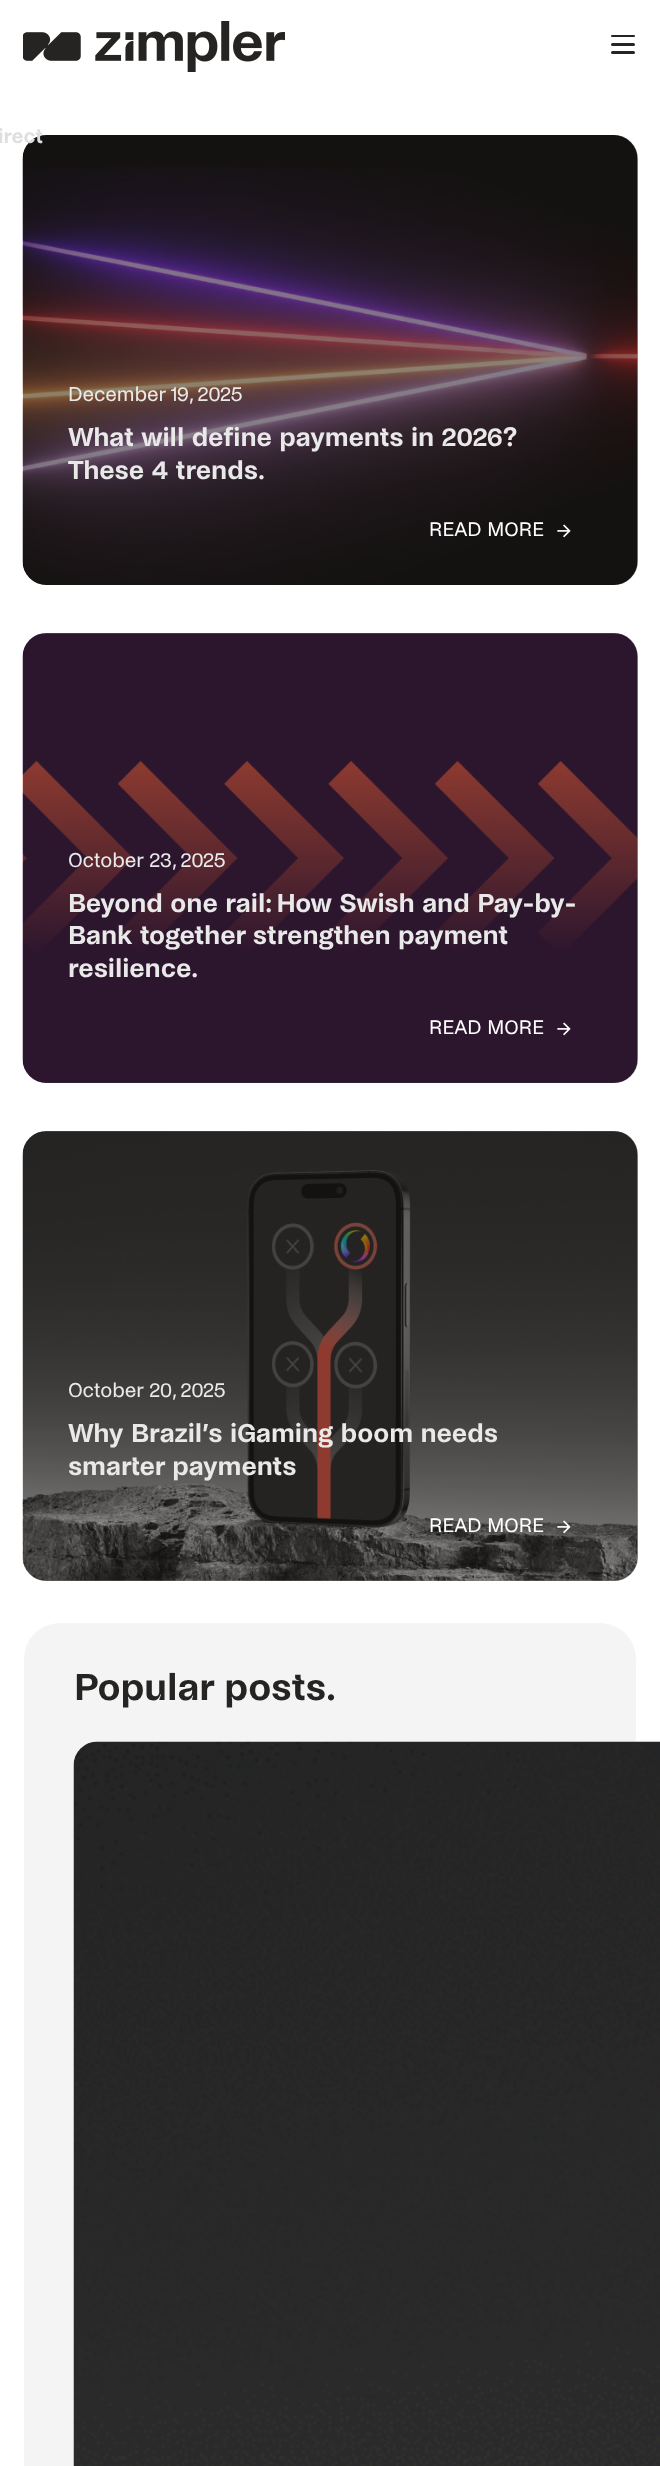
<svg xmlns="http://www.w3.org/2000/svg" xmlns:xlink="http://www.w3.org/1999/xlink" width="660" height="2466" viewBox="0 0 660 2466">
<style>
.cls-1{font:600 21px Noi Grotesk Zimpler;fill:#dedede}
.cls-2{font:21px Noi Grotesk Zimpler;fill:#e9e9e9}
.cls-3{font:600 27px Noi Grotesk Zimpler;fill:#e9e9e9}
.cls-4{font:20.5px Noi Grotesk Zimpler;fill:#ffffff}
.cls-5{font:600 39px Noi Grotesk Zimpler;fill:#252422}
</style>
<rect width="100%" height="100%" fill="#ffffff"/>
<image xlink:href="image0.png" x="23" y="21" width="262" height="51"/>
<rect fill="#252422" x="611" y="35" width="24" height="2" rx="1"/>
<rect fill="#252422" x="611" y="43" width="24" height="3" rx="1.5"/>
<rect fill="#252422" x="611" y="51" width="24" height="3" rx="1.5"/>
<image xlink:href="image1.png" x="22" y="135" width="616" height="450"/>
<rect fill="#252422" fill-opacity="0.5" x="23" y="135" width="615" height="450" rx="24"/>
<image xlink:href="image2.png" x="557" y="524" width="14" height="14"/>
<image xlink:href="image3.png" x="22" y="633" width="616" height="450"/>
<rect fill="#252422" fill-opacity="0.5" x="23" y="633" width="615" height="450" rx="24"/>
<image xlink:href="image4.png" x="557" y="1022" width="14" height="14"/>
<image xlink:href="image5.png" x="22" y="1131" width="616" height="450"/>
<rect fill="#252422" fill-opacity="0.5" x="23" y="1131" width="615" height="450" rx="24"/>
<image xlink:href="image6.png" x="557" y="1520" width="14" height="14"/>
<rect fill="#f4f4f4" x="24" y="1623" width="612" height="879" rx="36"/>
<image xlink:href="image7.png" x="73" y="1741" width="587" height="725"/>
<text class="cls-1" x="-2" y="143">irect</text>
<text class="cls-2" x="68" y="401">December 19, 2025</text>
<text class="cls-3"><tspan x="68" y="446">What will define payments in 2026?</tspan><tspan x="68" y="479">These 4 trends.</tspan></text>
<text class="cls-4" x="429" y="536">READ MORE</text>
<text class="cls-2" x="68" y="867">October 23, 2025</text>
<text class="cls-3"><tspan x="68" y="912">Beyond one rail: How Swish and Pay-by-</tspan><tspan x="68" y="944">Bank together strengthen payment</tspan><tspan x="68" y="977">resilience.</tspan></text>
<text class="cls-4" x="429" y="1034">READ MORE</text>
<text class="cls-2" x="68" y="1397">October 20, 2025</text>
<text class="cls-3"><tspan x="68" y="1442">Why Brazil’s iGaming boom needs</tspan><tspan x="68" y="1475">smarter payments</tspan></text>
<text class="cls-4" x="429" y="1532">READ MORE</text>
<text class="cls-5" x="74" y="1700">Popular posts.</text>
</svg>
